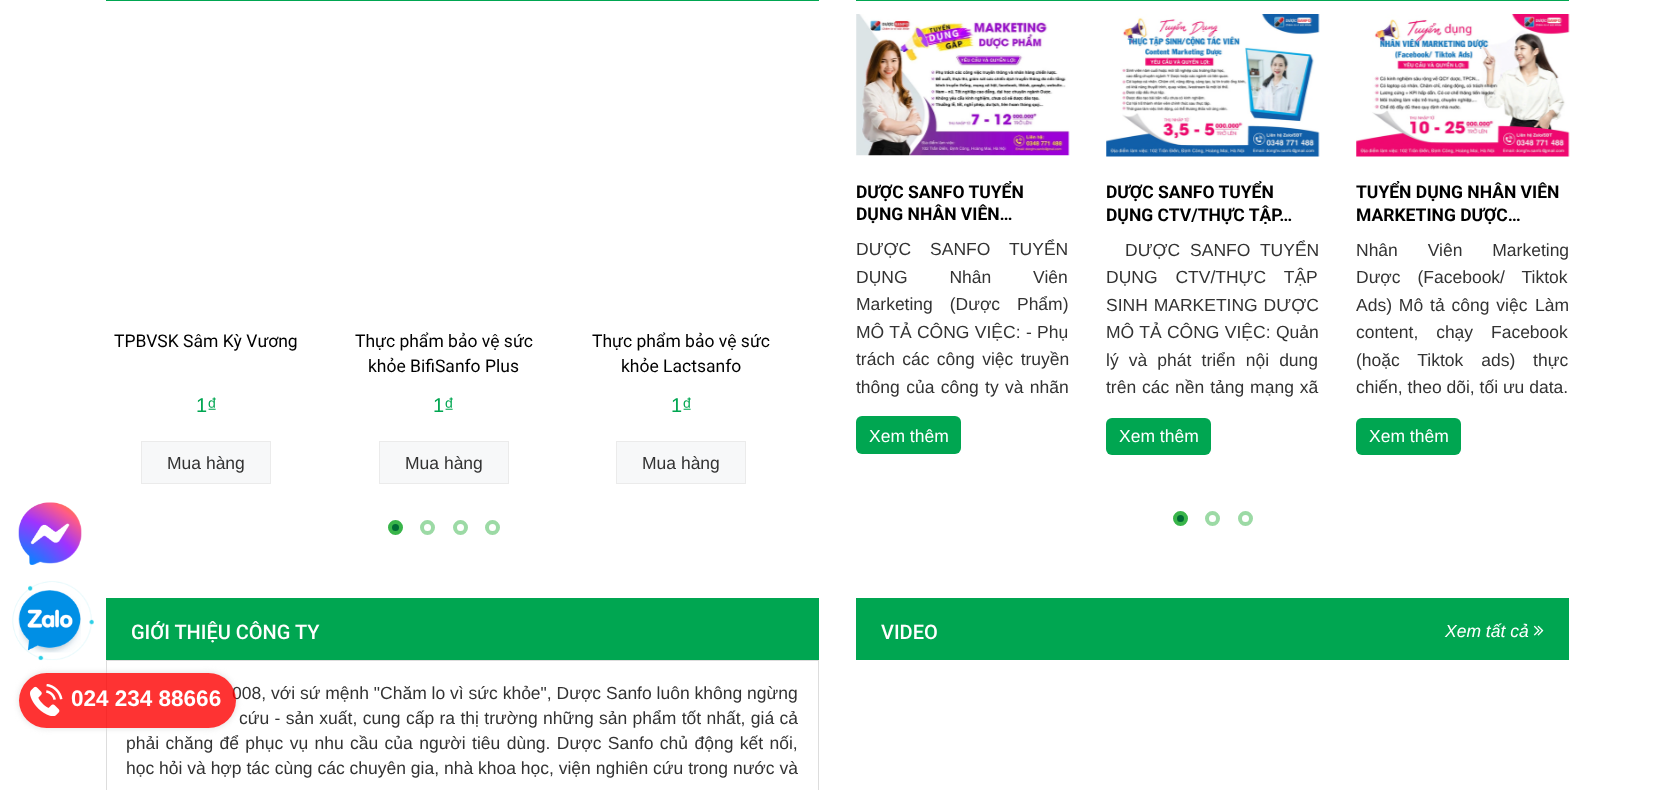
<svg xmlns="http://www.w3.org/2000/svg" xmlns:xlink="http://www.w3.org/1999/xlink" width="1674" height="790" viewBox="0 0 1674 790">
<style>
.cls-1{font:17.5px Roboto;fill:#000000}
.cls-2{font:20px Liberation Sans;fill:#00a651}
.cls-3{font:17.5px Liberation Sans;fill:#333333}
.cls-4{font:bold 17.5px Roboto;fill:#000000}
.cls-5{font:17.5px Liberation Sans;fill:#ffffff}
.cls-6{font:500 20px Roboto;fill:#ffffff}
.cls-7{font:italic 17.5px Liberation Sans;fill:#ffffff}
.cls-8{font:bold 22.5px Liberation Sans;fill:#ffffff}
</style>
<defs>
<clipPath id="clip1"><path d="M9 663H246V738H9ZM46.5 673H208.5C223.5 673 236 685.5 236 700.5C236 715.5 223.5 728 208.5 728H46.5C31.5 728 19 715.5 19 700.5C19 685.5 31.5 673 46.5 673Z" clip-rule="evenodd"/></clipPath>
</defs>
<rect width="100%" height="100%" fill="#ffffff"/>
<image xlink:href="image0.png" x="18" y="502" width="64" height="63"/>
<rect fill="#00a651" x="106" y="0" width="713" height="1"/>
<rect fill="#f7f8f9" stroke="#ebebeb" x="141.5" y="441.5" width="129" height="42"/>
<rect fill="#f7f8f9" stroke="#ebebeb" x="379.5" y="441.5" width="129" height="42"/>
<rect fill="#f7f8f9" stroke="#ebebeb" x="616.5" y="441.5" width="129" height="42"/>
<circle fill="#006b34" stroke="#39b54a" stroke-width="4" cx="395.5" cy="527.5" r="5.5"/>
<circle fill="none" stroke="#9cdaa5" stroke-width="4" cx="427.5" cy="527.5" r="5.5"/>
<circle fill="none" stroke="#9cdaa5" stroke-width="4" cx="460.5" cy="527.5" r="5.5"/>
<circle fill="none" stroke="#9cdaa5" stroke-width="4" cx="492.5" cy="527.5" r="5.5"/>
<rect fill="#00a651" x="856" y="0" width="713" height="1"/>
<image xlink:href="image1.png" x="856" y="14" width="214" height="142"/>
<rect fill="#00a651" x="856" y="416" width="105" height="38" rx="6"/>
<image xlink:href="image2.png" x="1106" y="14" width="214" height="143"/>
<rect fill="#00a651" x="1106" y="418" width="105" height="37" rx="6"/>
<image xlink:href="image3.png" x="1356" y="14" width="214" height="143"/>
<rect fill="#00a651" x="1356" y="418" width="105" height="37" rx="6"/>
<circle fill="#006b34" stroke="#39b54a" stroke-width="4" cx="1180.5" cy="518.5" r="5.5"/>
<circle fill="none" stroke="#9cdaa5" stroke-width="4" cx="1212.5" cy="518.5" r="5.5"/>
<circle fill="none" stroke="#9cdaa5" stroke-width="4" cx="1245.5" cy="518.5" r="5.5"/>
<rect fill="#00a651" x="106" y="598" width="713" height="62"/>
<rect fill="none" stroke="#dddddd" x="106.5" y="660.5" width="712" height="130"/>
<rect fill="#00a651" x="856" y="598" width="713" height="62"/>
<image xlink:href="image4.png" x="1533" y="625" width="11" height="11"/>
<image xlink:href="image5.png" x="12" y="581" width="82" height="80"/>
<image xlink:href="image6.png" x="18" y="590" width="63" height="63"/>
<g clip-path="url(#clip1)">
<rect fill="#dddddd" filter="blur(3px)" x="19" y="673" width="217" height="55" rx="27.5"/>
</g>
<text class="cls-1" x="114" y="347">TPBVSK Sâm Kỳ Vương</text>
<text class="cls-2" x="196" y="412">1₫</text>
<text class="cls-3" x="167" y="469">Mua hàng</text>
<text class="cls-1" x="355" y="347">Thực phẩm bảo vệ sức</text>
<text class="cls-1" x="368" y="372">khỏe BifiSanfo Plus</text>
<text class="cls-2" x="433" y="412">1₫</text>
<text class="cls-3" x="405" y="469">Mua hàng</text>
<text class="cls-1" x="592" y="347">Thực phẩm bảo vệ sức</text>
<text class="cls-1" x="621" y="372">khỏe Lactsanfo</text>
<text class="cls-2" x="671" y="412">1₫</text>
<text class="cls-3" x="642" y="469">Mua hàng</text>
<text class="cls-4"><tspan x="856" y="198">DƯỢC SANFO TUYỂN</tspan><tspan x="856" y="220">DỤNG NHÂN VIÊN…</tspan></text>
<text class="cls-3"><tspan x="856" y="255" word-spacing="14">DƯỢC SANFO TUYỂN</tspan><tspan x="856" y="283" word-spacing="37">DỤNG Nhân Viên</tspan><tspan x="856" y="310" word-spacing="12">Marketing (Dược Phẩm)</tspan><tspan x="856" y="338" word-spacing="0.5">MÔ TẢ CÔNG VIỆC: - Phụ</tspan><tspan x="856" y="365" word-spacing="2.5">trách các công việc truyền</tspan><tspan x="856" y="393" word-spacing="1.5">thông của công ty và nhãn</tspan></text>
<text class="cls-5" x="869" y="442">Xem thêm</text>
<text class="cls-4"><tspan x="1106" y="198">DƯỢC SANFO TUYỂN</tspan><tspan x="1106" y="221">DỤNG CTV/THỰC TẬP…</tspan></text>
<text class="cls-3" x="1125" y="256" word-spacing="5">DƯỢC SANFO TUYỂN</text>
<text class="cls-3"><tspan x="1106" y="283" word-spacing="13">DỤNG CTV/THỰC TẬP</tspan><tspan x="1106" y="311" word-spacing="1">SINH MARKETING DƯỢC</tspan><tspan x="1106" y="338" word-spacing="0.5">MÔ TẢ CÔNG VIỆC:</tspan></text>
<text class="cls-3" x="1276" y="338">Quản</text>
<text class="cls-3"><tspan x="1106" y="366" word-spacing="5.25">lý và phát triển nội dung</tspan><tspan x="1106" y="393" word-spacing="1">trên các nền tảng mạng xã</tspan></text>
<text class="cls-5" x="1119" y="442">Xem thêm</text>
<text class="cls-4"><tspan x="1356" y="198">TUYỂN DỤNG NHÂN VIÊN</tspan><tspan x="1356" y="221">MARKETING DƯỢC…</tspan></text>
<text class="cls-3"><tspan x="1356" y="256" word-spacing="25">Nhân Viên Marketing</tspan><tspan x="1356" y="283" word-spacing="12">Dược (Facebook/ Tiktok</tspan><tspan x="1356" y="311" word-spacing="2">Ads) Mô tả công việc</tspan></text>
<text class="cls-3" x="1535" y="311">Làm</text>
<text class="cls-3"><tspan x="1356" y="338" word-spacing="13">content, chạy Facebook</tspan><tspan x="1356" y="366" word-spacing="13">(hoặc Tiktok ads) thực</tspan><tspan x="1356" y="393">chiến, theo dõi, tối ưu data.</tspan></text>
<text class="cls-5" x="1369" y="442">Xem thêm</text>
<text class="cls-6" x="131" y="639">GIỚI THIỆU CÔNG TY</text>
<text class="cls-3" x="232" y="699">008, với sứ mệnh "Chăm lo vì sức khỏe", Dược Sanfo luôn không ngừng</text>
<text class="cls-3" x="239" y="724" word-spacing="0.5">cứu - sản xuất, cung cấp ra thị trường những sản phẩm tốt nhất, giá cả</text>
<text class="cls-3"><tspan x="126" y="749" word-spacing="1.5">phải chăng để phục vụ nhu cầu của người tiêu dùng. Dược Sanfo chủ động kết nối,</tspan><tspan x="126" y="774">học hỏi và hợp tác cùng các chuyên gia, nhà khoa học, viện nghiên cứu trong nước và</tspan></text>
<text class="cls-6" x="881" y="639">VIDEO</text>
<text class="cls-7" x="1445" y="637">Xem tất cả</text>
<rect fill="#fe0000" fill-opacity="0.8" x="19" y="673" width="217" height="55" rx="27.5"/>
<image xlink:href="image7.png" x="30" y="684" width="33" height="32"/>
<text class="cls-8" x="71" y="706">024 234 88666</text>
</svg>
